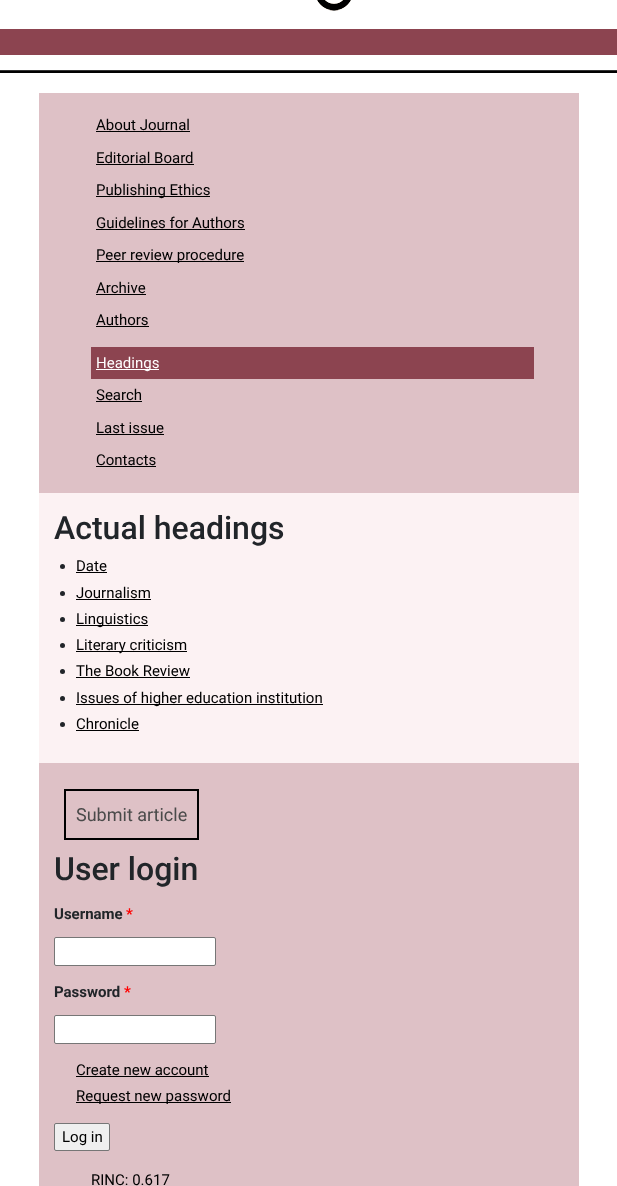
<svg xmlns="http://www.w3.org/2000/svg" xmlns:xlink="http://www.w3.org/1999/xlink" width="617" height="1186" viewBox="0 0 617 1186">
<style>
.cls-1{font:15px Roboto;fill:#000000}
.cls-2{font:15px Roboto;fill:#ffffff}
.cls-3{font:500 32px Roboto;fill:#212529}
.cls-4{font:18px Roboto;fill:#4a4a4a}
.cls-5{font:bold 15px Roboto;fill:#212529}
.cls-6{font:bold 15px Roboto;fill:#ff0000}
</style>
<rect width="100%" height="100%" fill="#ffffff"/>
<image xlink:href="image0.png" x="317" y="0" width="34" height="11"/>
<rect fill="#8c4450" x="0" y="29" width="617" height="26"/>
<rect fill="#333333" x="0" y="70" width="617" height="1"/>
<rect fill="#000000" x="0" y="71" width="617" height="2"/>
<rect fill="#dec1c6" x="39" y="93" width="540" height="400"/>
<rect fill="#000000" x="96" y="131" width="94" height="1"/>
<rect fill="#000000" x="96" y="164" width="98" height="1"/>
<rect fill="#000000" x="96" y="196" width="114" height="1"/>
<rect fill="#000000" x="96" y="229" width="149" height="1"/>
<rect fill="#000000" x="96" y="261" width="148" height="1"/>
<rect fill="#000000" x="96" y="294" width="50" height="1"/>
<rect fill="#000000" x="96" y="326" width="53" height="1"/>
<rect fill="#8c4450" x="91" y="347" width="443" height="32"/>
<rect fill="#ffffff" x="96" y="369" width="63" height="1"/>
<rect fill="#000000" x="96" y="401" width="46" height="1"/>
<rect fill="#000000" x="96" y="434" width="68" height="1"/>
<rect fill="#000000" x="96" y="466" width="60" height="1"/>
<rect fill="#fcf2f3" x="39" y="493" width="540" height="270"/>
<circle fill="#212529" cx="62.5" cy="566.5" r="2.5"/>
<rect fill="#000000" x="76" y="572" width="31" height="1"/>
<circle fill="#212529" cx="62.5" cy="593.5" r="2.5"/>
<rect fill="#000000" x="76" y="599" width="75" height="1"/>
<circle fill="#212529" cx="62.5" cy="619.5" r="2.5"/>
<rect fill="#000000" x="76" y="625" width="72" height="1"/>
<circle fill="#212529" cx="62.5" cy="645.5" r="2.5"/>
<rect fill="#000000" x="76" y="651" width="111" height="1"/>
<circle fill="#212529" cx="62.5" cy="671.5" r="2.5"/>
<rect fill="#000000" x="76" y="677" width="114" height="1"/>
<circle fill="#212529" cx="62.5" cy="698.5" r="2.5"/>
<rect fill="#000000" x="76" y="704" width="247" height="1"/>
<circle fill="#212529" cx="62.5" cy="724.5" r="2.5"/>
<rect fill="#000000" x="76" y="730" width="63" height="1"/>
<rect fill="#dec1c6" x="39" y="763" width="540" height="423"/>
<rect fill="none" stroke="#000000" stroke-width="2" x="65" y="790" width="133" height="49"/>
<rect fill="#ffffff" stroke="#767676" x="54.5" y="937.5" width="161" height="28" rx="1.5"/>
<rect fill="#ffffff" stroke="#767676" x="54.5" y="1015.5" width="161" height="28" rx="1.5"/>
<rect fill="#000000" x="76" y="1076" width="133" height="1"/>
<rect fill="#000000" x="76" y="1102" width="155" height="1"/>
<rect fill="#efefef" stroke="#767676" x="54.5" y="1123.5" width="55" height="27" rx="1.5"/>
<text class="cls-1" x="96" y="130">About Journal</text>
<text class="cls-1" x="96" y="163">Editorial Board</text>
<text class="cls-1" x="96" y="195">Publishing Ethics</text>
<text class="cls-1" x="96" y="228">Guidelines for Authors</text>
<text class="cls-1" x="96" y="260">Peer review procedure</text>
<text class="cls-1" x="96" y="293">Archive</text>
<text class="cls-1" x="96" y="325">Authors</text>
<text class="cls-2" x="96" y="368">Headings</text>
<text class="cls-1" x="96" y="400">Search</text>
<text class="cls-1" x="96" y="433">Last issue</text>
<text class="cls-1" x="96" y="465">Contacts</text>
<text class="cls-3" x="54" y="539">Actual headings</text>
<text class="cls-1"><tspan x="76" y="571">Date</tspan><tspan x="76" y="598">Journalism</tspan><tspan x="76" y="624">Linguistics</tspan><tspan x="76" y="650">Literary criticism</tspan><tspan x="76" y="676">The Book Review</tspan><tspan x="76" y="703">Issues of higher education institution</tspan><tspan x="76" y="729">Chronicle</tspan></text>
<text class="cls-4" x="76" y="821">Submit article</text>
<text class="cls-3" x="54" y="880">User login</text>
<text class="cls-5" x="54" y="919">Username</text>
<text class="cls-6" x="126" y="919">*</text>
<text class="cls-5" x="54" y="997">Password</text>
<text class="cls-6" x="124" y="997">*</text>
<text class="cls-1"><tspan x="76" y="1075">Create new account</tspan><tspan x="76" y="1101">Request new password</tspan></text>
<text class="cls-1" x="62" y="1142">Log in</text>
<text class="cls-1" x="91" y="1185">RINC: 0.617</text>
</svg>
